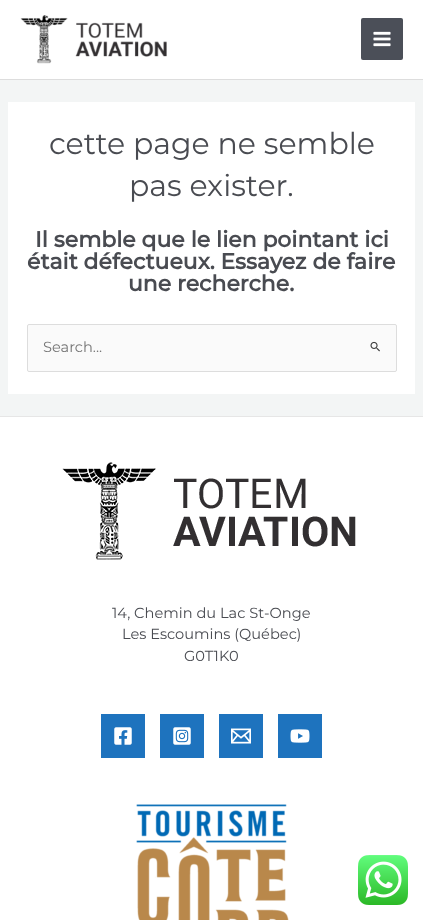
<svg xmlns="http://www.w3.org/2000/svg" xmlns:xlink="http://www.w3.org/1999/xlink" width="423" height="920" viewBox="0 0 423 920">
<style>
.cls-1{font:30px Montserrat;fill:#494b51}
.cls-2{font:bold 21.9px Montserrat;fill:#494b51}
.cls-3{font:14.6px Montserrat;fill:#757575}
.cls-4{font:14.6px Montserrat;fill:#494b51}
</style>
<rect width="100%" height="100%" fill="#f3f5f5"/>
<rect fill="#ffffff" x="0" y="0" width="423" height="79"/>
<rect fill="#dddddd" x="0" y="79" width="423" height="1"/>
<image xlink:href="image0.png" x="20" y="15" width="147" height="49"/>
<rect fill="#4b4f58" x="361" y="18" width="42" height="42" rx="2"/>
<image xlink:href="image1.png" x="373" y="31" width="18" height="16"/>
<rect fill="#ffffff" x="8" y="102" width="407" height="292"/>
<rect fill="#fafafa" stroke="#dddddd" x="27.5" y="324.5" width="369" height="47" rx="1.5"/>
<image xlink:href="image2.png" x="370" y="341" width="10" height="11"/>
<rect fill="#ffffff" x="0" y="417" width="423" height="503"/>
<rect fill="#e6e6e6" x="0" y="416" width="423" height="1"/>
<image xlink:href="image3.png" x="62" y="462" width="294" height="98"/>
<rect fill="#1e73be" x="101" y="714" width="44" height="44"/>
<image xlink:href="image4.png" x="114" y="727" width="18" height="18"/>
<rect fill="#1e73be" x="160" y="714" width="44" height="44"/>
<image xlink:href="image5.png" x="173" y="727" width="18" height="18"/>
<rect fill="#1e73be" x="219" y="714" width="44" height="44"/>
<image xlink:href="image6.png" x="231" y="728" width="20" height="16"/>
<rect fill="#1e73be" x="278" y="714" width="44" height="44"/>
<image xlink:href="image7.png" x="290" y="729" width="20" height="14"/>
<image xlink:href="image8.png" x="136" y="804" width="153" height="116"/>
<image xlink:href="image9.png" x="358" y="855" width="50" height="50"/>
<text class="cls-1" x="49" y="154">cette page ne semble</text>
<text class="cls-1" x="129" y="196">pas exister.</text>
<text class="cls-2" x="35" y="247">Il semble que le lien pointant ici</text>
<text class="cls-2" x="27" y="269">était défectueux. Essayez de faire</text>
<text class="cls-2" x="128" y="291">une recherche.</text>
<text class="cls-3" x="43" y="352">Search...</text>
<text class="cls-4" x="112" y="618">14, Chemin du Lac St-Onge</text>
<text class="cls-4" x="122" y="639">Les Escoumins (Québec)</text>
<text class="cls-4" x="184" y="661">G0T1K0</text>
</svg>
